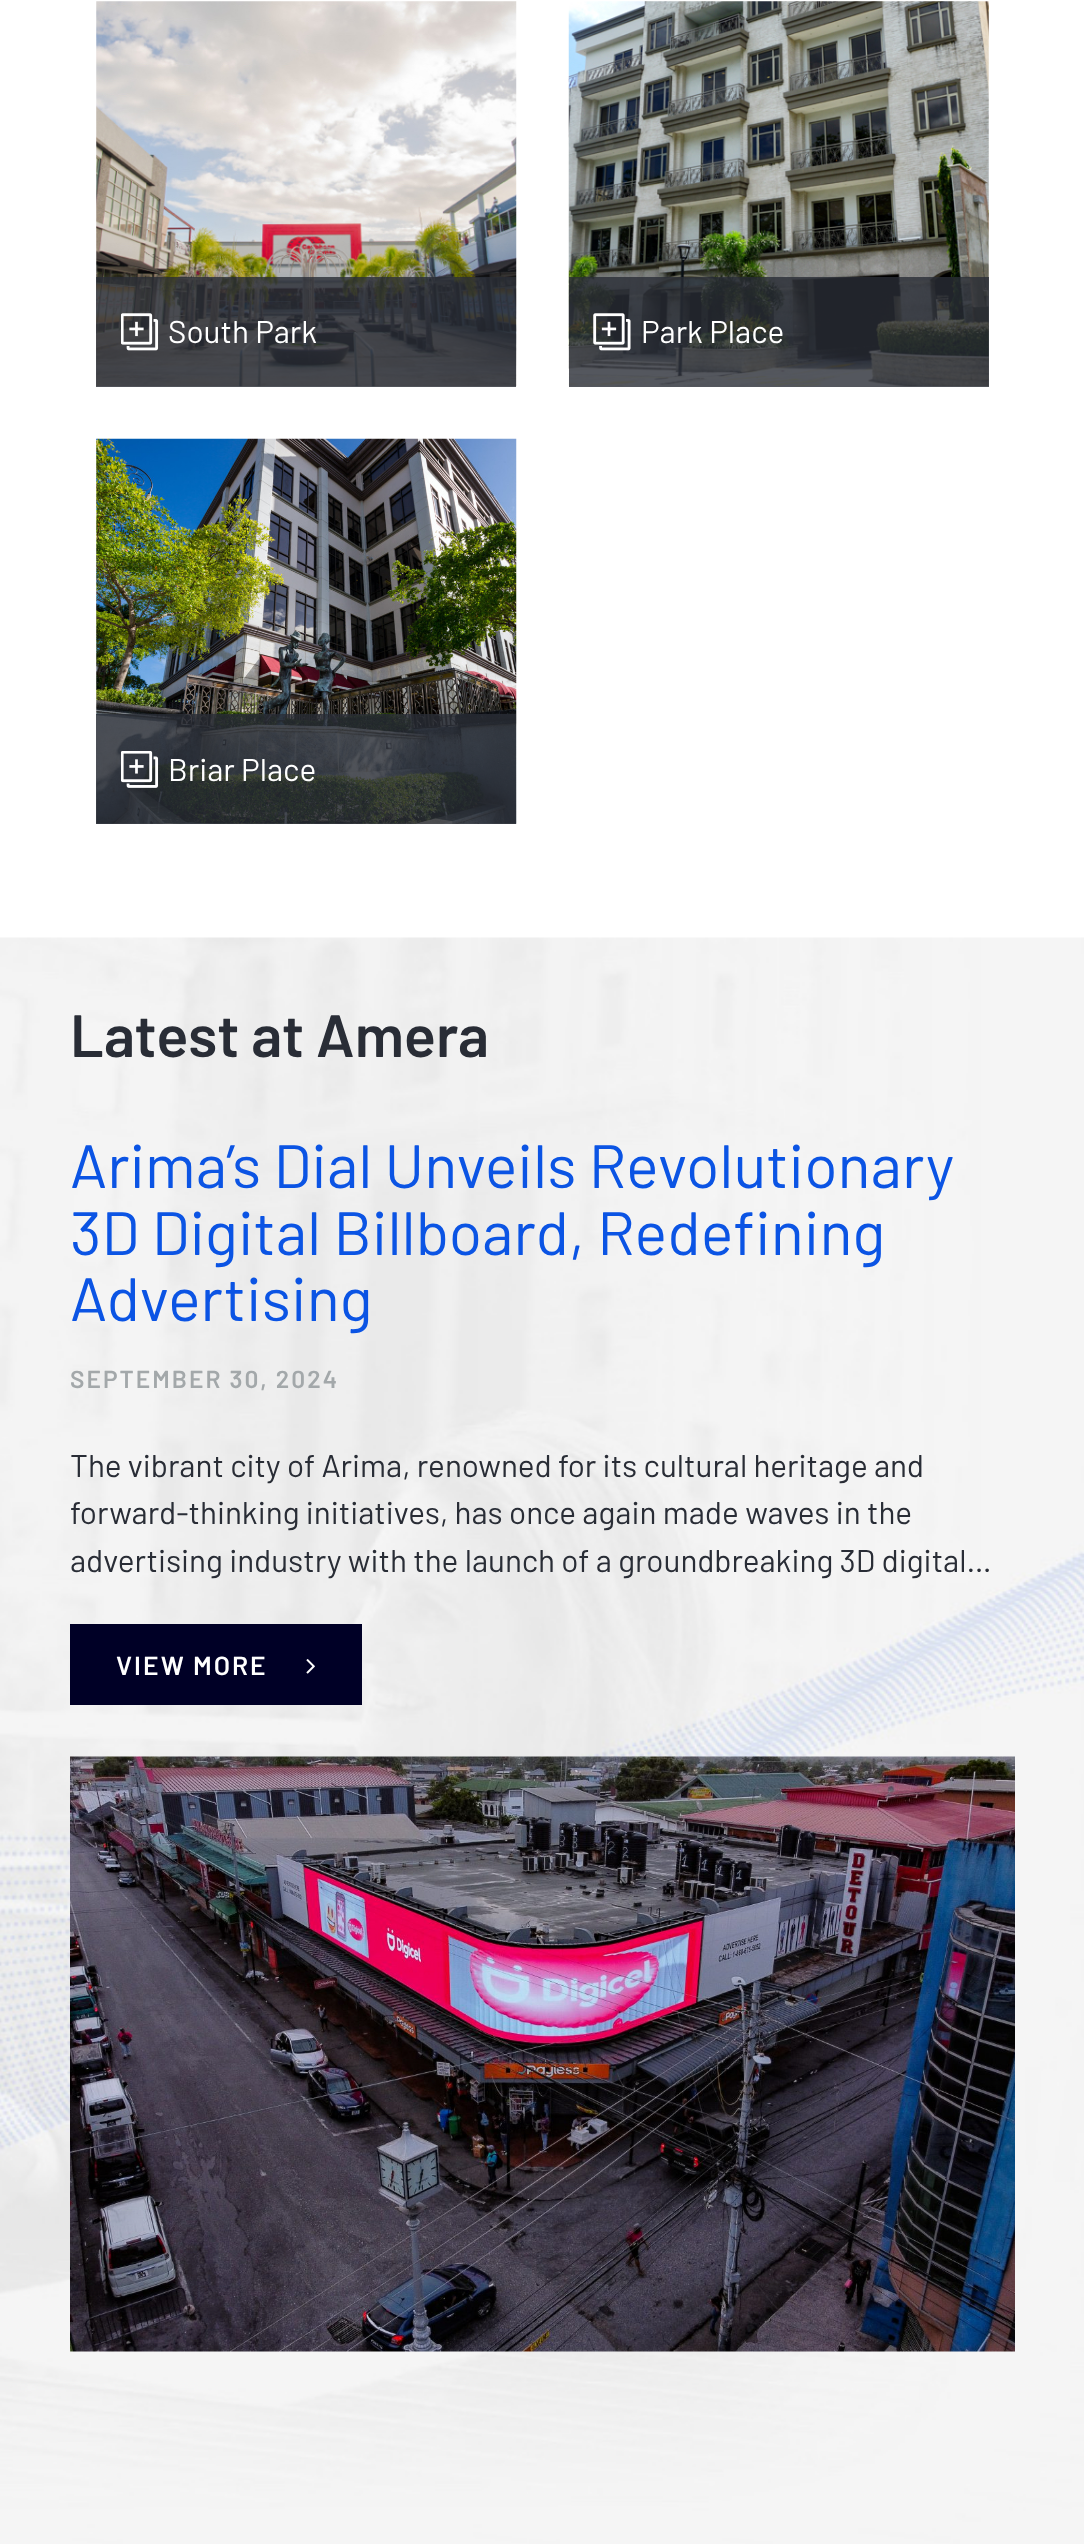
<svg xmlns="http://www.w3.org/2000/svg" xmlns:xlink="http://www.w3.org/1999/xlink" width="1084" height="2545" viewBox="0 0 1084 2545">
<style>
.cls-1{font:31.5px Barlow;fill:#ffffff}
.cls-2{font:600 59.5px Barlow;fill:#292d36}
.cls-3{font:61.25px Barlow;fill:#0b54e4}
.cls-4{font:600 24.5px Barlow;letter-spacing:2px;fill:#a3a8aa}
.cls-5{font:31.5px Barlow;fill:#292d36}
.cls-6{font:600 26.25px Barlow;letter-spacing:2px;fill:#ffffff}
</style>
<rect width="100%" height="100%" fill="#ffffff"/>
<image xlink:href="image0.png" x="96" y="1" width="421" height="386"/>
<rect fill="#292d36" fill-opacity="0.8" x="96" y="277" width="420" height="110"/>
<image xlink:href="image1.png" x="121" y="313" width="38" height="38"/>
<image xlink:href="image2.png" x="568" y="1" width="421" height="386"/>
<rect fill="#292d36" fill-opacity="0.8" x="569" y="277" width="420" height="110"/>
<image xlink:href="image3.png" x="593" y="313" width="38" height="38"/>
<image xlink:href="image4.png" x="96" y="438" width="421" height="386"/>
<rect fill="#292d36" fill-opacity="0.8" x="96" y="714" width="420" height="110"/>
<image xlink:href="image5.png" x="121" y="751" width="38" height="37"/>
<image xlink:href="image6.png" x="0" y="937" width="1084" height="1607"/>
<rect fill="#000026" x="70" y="1624" width="292" height="81"/>
<image xlink:href="image7.png" x="306" y="1659" width="9" height="15"/>
<image xlink:href="image8.png" x="70" y="1756" width="945" height="596"/>
<text class="cls-1" x="168" y="343">South Park</text>
<text class="cls-1" x="641" y="343">Park Place</text>
<text class="cls-1" x="168" y="781">Briar Place</text>
<text class="cls-2" x="70" y="1057">Latest at Amera</text>
<text class="cls-3"><tspan x="70" y="1188">Arima’s Dial Unveils Revolutionary</tspan><tspan x="70" y="1255">3D Digital Billboard, Redefining</tspan><tspan x="70" y="1321">Advertising</tspan></text>
<text class="cls-4" x="70" y="1388">SEPTEMBER 30, 2024</text>
<text class="cls-5"><tspan x="70" y="1477">The vibrant city of Arima, renowned for its cultural heritage and</tspan><tspan x="70" y="1524">forward-thinking initiatives, has once again made waves in the</tspan><tspan x="70" y="1572">advertising industry with the launch of a groundbreaking 3D digital…</tspan></text>
<text class="cls-6" x="116" y="1675">VIEW MORE</text>
</svg>
